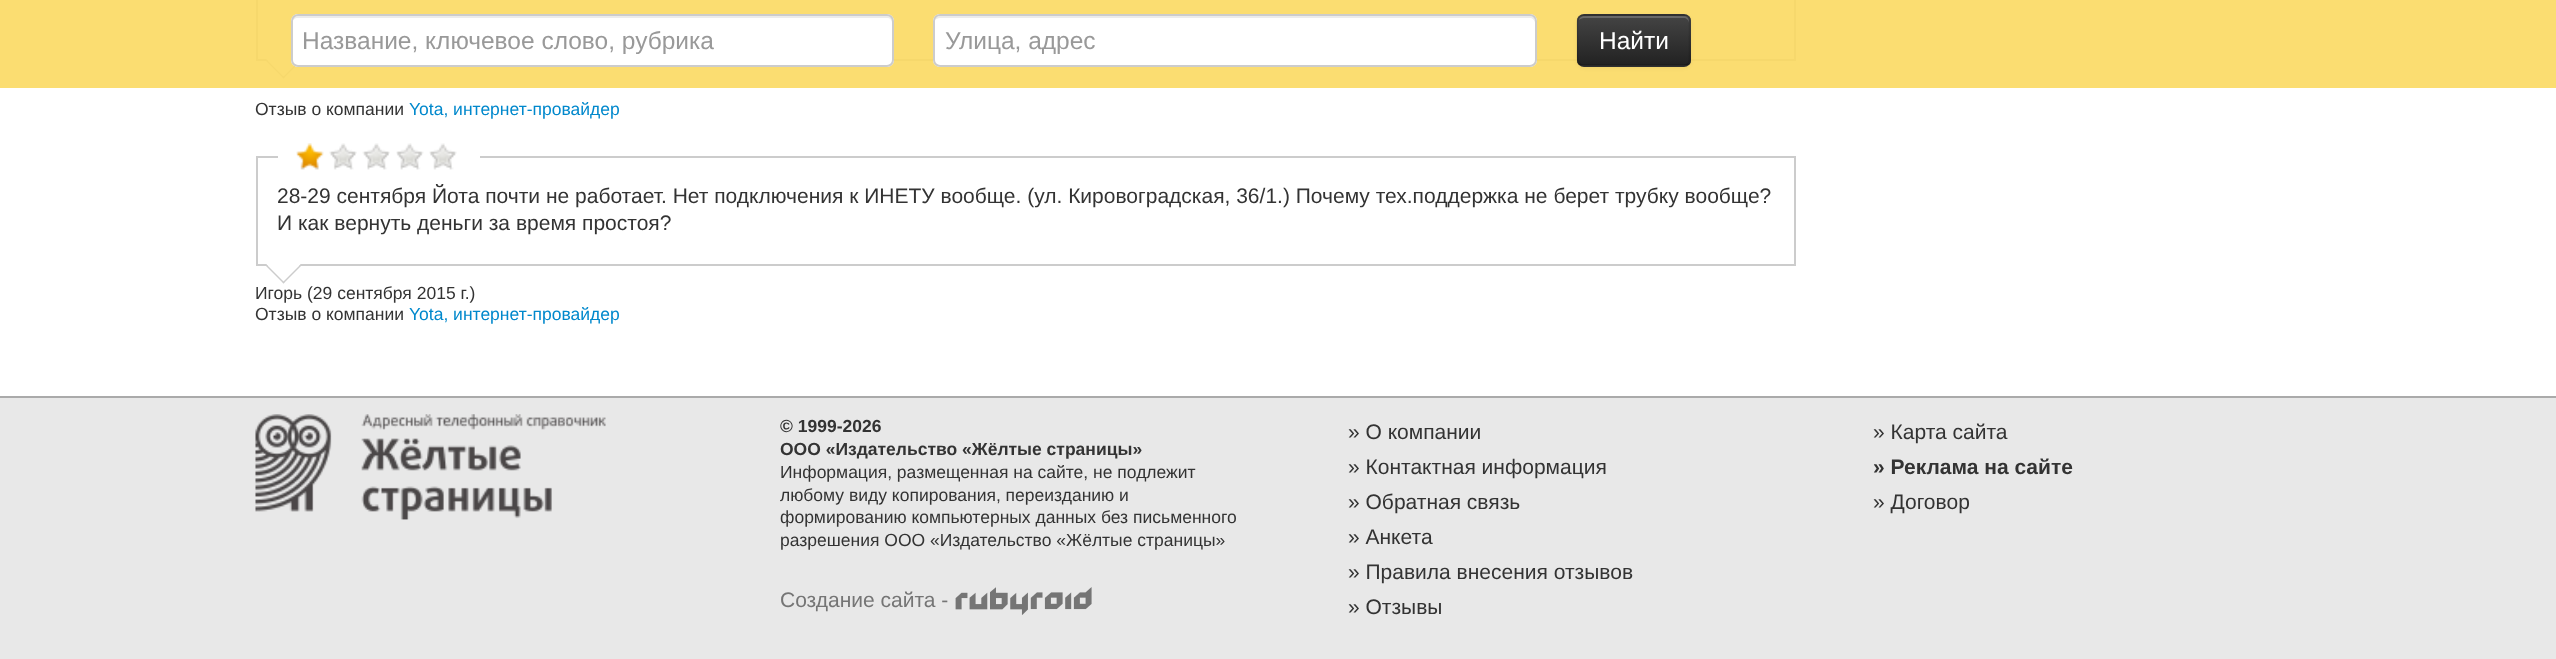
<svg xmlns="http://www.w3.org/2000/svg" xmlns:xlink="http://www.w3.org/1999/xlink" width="2556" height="659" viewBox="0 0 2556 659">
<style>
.cls-1{font:24.5px Liberation Sans;fill:#999999}
.cls-2{font:24.5px Liberation Sans;fill:#ffffff}
.cls-3{font:17.5px Liberation Sans;fill:#333333}
.cls-4{font:17.5px Liberation Sans;fill:#0088cc}
.cls-5{font:21px Liberation Sans;fill:#333333}
.cls-6{font:bold 17.5px Liberation Sans;fill:#333333}
.cls-7{font:21px Liberation Sans;fill:#757575}
.cls-8{font:bold 21px Liberation Sans;fill:#333333}
</style>
<defs>
<clipPath id="clip1"><rect x="1577" y="14" width="114" height="53" rx="7"/></clipPath>
<linearGradient id="g1" gradientUnits="userSpaceOnUse" x1="1634" y1="16" x2="1634" y2="65"><stop offset="0" stop-color="#444444"/><stop offset="1" stop-color="#222222"/></linearGradient>
</defs>
<rect width="100%" height="100%" fill="#ffffff"/>
<rect fill="none" stroke="#cccccc" stroke-width="2" x="257" y="-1" width="1538" height="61"/>
<path fill="#ffffff" d="M283.5 41.5L301 59L283.5 76L266 59Z"/>
<path fill="#cccccc" d="M301 59L302 60L283.5 78.5L282.5 77.5Z"/>
<path fill="#cccccc" d="M266 59L284.5 77.5L283.5 78.5L265 60Z"/>
<rect fill="#fbd962" fill-opacity="0.9" x="0" y="0" width="2556" height="88"/>
<rect fill="#ffffff" x="291" y="14" width="603" height="53" rx="7"/>
<path fill="#ececec" d="M298 18H887C890 18 892 20 892 23V61L891 64L893 61V21L892 18C891 17 890 16 889 16H297C293 16 292 20 292 23C292 20 295 18 298 18Z"/>
<rect fill="none" stroke="#cccccc" stroke-width="2" x="292" y="15" width="601" height="51" rx="6"/>
<rect fill="#ffffff" x="933" y="14" width="604" height="53" rx="7"/>
<path fill="#ececec" d="M940 18H1530C1532 18 1535 20 1535 23V21C1535 18 1533 16 1530 16H940C938 16 935 18 935 20C936 19 938 18 940 18Z"/>
<rect fill="none" stroke="#cccccc" stroke-width="2" x="934" y="15" width="602" height="51" rx="6"/>
<rect fill="#000000" fill-opacity="0.05" filter="blur(2px)" x="1577" y="16" width="114" height="52" rx="7"/>
<rect fill="#363636" x="1577" y="14" width="114" height="53" rx="7"/>
<g clip-path="url(#clip1)">
<rect fill="url(#g1)" x="1577" y="16" width="114" height="49"/>
</g>
<path fill="#ffffff" fill-opacity="0.2" d="M1584 18H1684C1686 18 1689 20 1689 23V21C1689 18 1687 16 1684 16H1584C1582 16 1579 18 1579 20C1580 19 1582 18 1584 18Z"/>
<path fill="none" stroke="#000000" stroke-opacity="0.25" stroke-width="1.8" d="M1688 64C1686.5 65 1685 65.5 1683.5 65.5H1584C1582 65.5 1580.5 65 1579.5 64"/>
<path fill="none" stroke="#000000" stroke-opacity="0.1" stroke-width="1.8" d="M1579.5 64C1576.5 61 1577.5 56.5 1577.5 53V40C1577.5 13 1573 15 1600.5 15H1667C1694 15 1689.5 13 1689.5 40V53C1689.5 56.5 1690.5 61 1688 64"/>
<rect fill="none" stroke="#cccccc" stroke-width="2" x="257" y="157" width="1538" height="108"/>
<rect fill="#ffffff" x="278" y="156" width="202" height="2"/>
<image xlink:href="image0.png" x="296" y="143" width="28" height="27"/>
<image xlink:href="image1.png" x="329" y="143" width="28" height="27"/>
<image xlink:href="image2.png" x="362" y="143" width="28" height="27"/>
<image xlink:href="image3.png" x="396" y="143" width="28" height="27"/>
<image xlink:href="image4.png" x="429" y="143" width="28" height="27"/>
<path fill="#ffffff" d="M283.5 246.5L301 264L283.5 281L266 264Z"/>
<path fill="#cccccc" d="M301 264L302 265L283.5 283.5L282.5 282.5Z"/>
<path fill="#cccccc" d="M266 264L284.5 282.5L283.5 283.5L265 265Z"/>
<rect fill="#e8e8e8" x="0" y="398" width="2556" height="261"/>
<rect fill="#aaaaaa" x="0" y="396" width="2556" height="2"/>
<image xlink:href="image5.png" x="255" y="414" width="351" height="106"/>
<image xlink:href="image6.png" x="955" y="587" width="137" height="28"/>
<text class="cls-1" x="302" y="49">Название, ключевое слово, рубрика</text>
<text class="cls-1" x="945" y="49">Улица, адрес</text>
<text class="cls-2" x="1599" y="49">Найти</text>
<text class="cls-3" x="255" y="115">Отзыв о компании</text>
<text class="cls-4" x="409" y="115">Yota, интернет-провайдер</text>
<text class="cls-5"><tspan x="277" y="203">28-29 сентября Йота почти не работает. Нет подключения к ИНЕТУ вообще. (ул. Кировоградская, 36/1.) Почему тех.поддержка не берет трубку вообще?</tspan><tspan x="277" y="230">И как вернуть деньги за время простоя?</tspan></text>
<text class="cls-3"><tspan x="255" y="299">Игорь (29 сентября 2015 г.)</tspan><tspan x="255" y="320">Отзыв о компании</tspan></text>
<text class="cls-4" x="409" y="320">Yota, интернет-провайдер</text>
<text class="cls-6"><tspan x="780" y="432">© 1999-2026</tspan><tspan x="780" y="455">ООО «Издательство «Жёлтые страницы»</tspan></text>
<text class="cls-3"><tspan x="780" y="478">Информация, размещенная на сайте, не подлежит</tspan><tspan x="780" y="501">любому виду копирования, переизданию и</tspan><tspan x="780" y="523">формированию компьютерных данных без письменного</tspan><tspan x="780" y="546">разрешения ООО «Издательство «Жёлтые страницы»</tspan></text>
<text class="cls-7" x="780" y="607">Создание сайта -</text>
<text class="cls-5"><tspan x="1348" y="439">» О компании</tspan><tspan x="1348" y="474">» Контактная информация</tspan><tspan x="1348" y="509">» Обратная связь</tspan><tspan x="1348" y="544">» Анкета</tspan><tspan x="1348" y="579">» Правила внесения отзывов</tspan><tspan x="1348" y="614">» Отзывы</tspan></text>
<text class="cls-5" x="1873" y="439">» Карта сайта</text>
<text class="cls-8" x="1873" y="474">» Реклама на сайте</text>
<text class="cls-5" x="1873" y="509">» Договор</text>
</svg>
